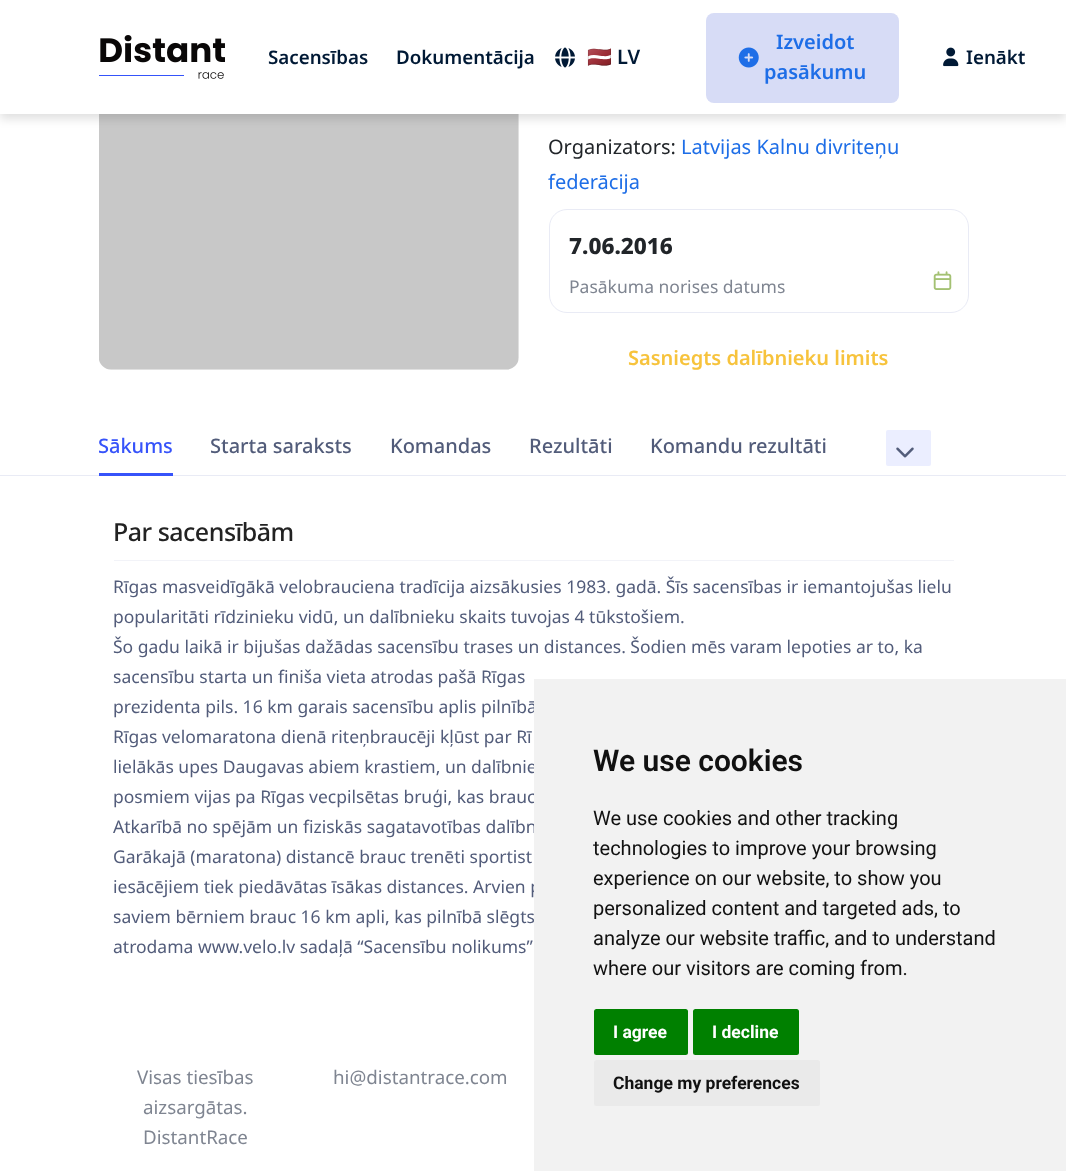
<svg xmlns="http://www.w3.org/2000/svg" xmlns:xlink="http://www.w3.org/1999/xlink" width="1066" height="1171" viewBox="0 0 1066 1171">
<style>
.cls-1{font:600 18.75px Noto Sans;fill:#001935}
.cls-2{font:20px Noto Color Emoji;fill:#001935}
.cls-3{font:600 20px Noto Sans;fill:#001935}
.cls-4{font:600 20px Noto Sans;fill:#1e6ee7}
.cls-5{font:20px Noto Sans;fill:#212529}
.cls-6{font:20px Noto Sans;fill:#1e6ee7}
.cls-7{font:800 22.5px Noto Sans;fill:#212529}
.cls-8{font:17.5px Noto Sans;fill:#7f8591}
.cls-9{font:600 20px Noto Sans;fill:#f7c33c}
.cls-10{font:500 20px Noto Sans;fill:#3653fa}
.cls-11{font:500 20px Noto Sans;fill:#525c7a}
.cls-12{font:500 25px Noto Sans;letter-spacing:-0.5px;fill:#222222}
.cls-13{font:17.5px Noto Sans;fill:#525c7a}
.cls-14{font:600 30px Roboto;fill:#111111}
.cls-15{font:20px Roboto;fill:#111111}
.cls-16{font:bold 17.5px Roboto;fill:#ffffff}
.cls-17{font:bold 17.5px Roboto;fill:#111111}
.cls-18{font:18.75px Noto Sans;fill:#7f8591}
</style>
<rect width="100%" height="100%" fill="#ffffff"/>
<image xlink:href="image4.png" x="99" y="114" width="420" height="256"/>
<rect fill="#000000" fill-opacity="0.12" filter="blur(5px)" x="0" y="5" width="1066" height="114"/>
<rect fill="#ffffff" x="0" y="0" width="1066" height="114"/>
<image xlink:href="image0.png" x="99" y="35" width="126" height="44"/>
<image xlink:href="image1.png" x="555" y="47" width="20" height="21"/>
<rect fill="#d7dcf6" x="706" y="13" width="193" height="90" rx="8"/>
<image xlink:href="image2.png" x="738" y="47" width="21" height="21"/>
<image xlink:href="image3.png" x="943" y="47" width="16" height="20"/>
<rect fill="none" stroke="#e9ebf5" x="549.5" y="209.5" width="419" height="103" rx="17.5"/>
<image xlink:href="image5.png" x="933" y="271" width="19" height="19"/>
<rect fill="#e9ebf5" x="0" y="475" width="1066" height="1"/>
<rect fill="#3653fa" x="99" y="473" width="74" height="3"/>
<rect fill="#ebeeff" x="886" y="430" width="45" height="36" rx="2"/>
<image xlink:href="image6.png" x="896" y="447" width="18" height="11"/>
<rect fill="#f2f3f8" x="114" y="560" width="840" height="1"/>
<text class="cls-1" x="268" y="64">Sacensības</text>
<text class="cls-1" x="396" y="64">Dokumentācija</text>
<text class="cls-2" x="587" y="64">🇱🇻</text>
<text class="cls-3" x="617" y="64">LV</text>
<text class="cls-4" x="776" y="49">Izveidot</text>
<text class="cls-4" x="764" y="79">pasākumu</text>
<text class="cls-1" x="966" y="64">Ienākt</text>
<text class="cls-5" x="548" y="154">Organizators:</text>
<text class="cls-6" x="681" y="154">Latvijas Kalnu divriteņu</text>
<text class="cls-6" x="548" y="189">federācija</text>
<text class="cls-7" x="569" y="254">7.06.2016</text>
<text class="cls-8" x="569" y="293">Pasākuma norises datums</text>
<text class="cls-9" x="628" y="365">Sasniegts dalībnieku limits</text>
<text class="cls-10" x="98" y="453">Sākums</text>
<text class="cls-11" x="210" y="453">Starta saraksts</text>
<text class="cls-11" x="390" y="453">Komandas</text>
<text class="cls-11" x="529" y="453">Rezultāti</text>
<text class="cls-11" x="650" y="453">Komandu rezultāti</text>
<text class="cls-12" x="113" y="541">Par sacensībām</text>
<text class="cls-13"><tspan x="113" y="593">Rīgas masveidīgākā velobrauciena tradīcija aizsākusies 1983. gadā. Šīs sacensības ir iemantojušas lielu</tspan><tspan x="113" y="623">popularitāti rīdzinieku vidū, un dalībnieku skaits tuvojas 4 tūkstošiem.</tspan><tspan x="113" y="653">Šo gadu laikā ir bijušas dažādas sacensību trases un distances. Šodien mēs varam lepoties ar to, ka</tspan><tspan x="113" y="683">sacensību starta un finiša vieta atrodas pašā Rīgas</tspan><tspan x="113" y="713">prezidenta pils. 16 km garais sacensību aplis pilnībā</tspan><tspan x="113" y="743">Rīgas velomaratona dienā riteņbraucēji kļūst par Rī</tspan><tspan x="113" y="773">lielākās upes Daugavas abiem krastiem, un dalībnie</tspan><tspan x="113" y="803">posmiem vijas pa Rīgas vecpilsētas bruģi, kas brauc</tspan><tspan x="113" y="833">Atkarībā no spējām un fiziskās sagatavotības dalībn</tspan><tspan x="113" y="863">Garākajā (maratona) distancē brauc trenēti sportist</tspan><tspan x="113" y="893">iesācējiem tiek piedāvātas īsākas distances. Arvien p</tspan><tspan x="113" y="923">saviem bērniem brauc 16 km apli, kas pilnībā slēgts</tspan><tspan x="113" y="953">atrodama www.velo.lv sadaļā “Sacensību nolikums”</tspan></text>
<rect fill="#f2f2f2" x="534" y="679" width="532" height="492"/>
<text class="cls-14" x="593" y="771">We use cookies</text>
<text class="cls-15"><tspan x="593" y="825">We use cookies and other tracking</tspan><tspan x="593" y="855">technologies to improve your browsing</tspan><tspan x="593" y="885">experience on our website, to show you</tspan><tspan x="593" y="915">personalized content and targeted ads, to</tspan><tspan x="593" y="945">analyze our website traffic, and to understand</tspan><tspan x="593" y="975">where our visitors are coming from.</tspan></text>
<rect fill="#008000" x="594" y="1009" width="94" height="46" rx="2.5"/>
<text class="cls-16" x="613" y="1038">I agree</text>
<rect fill="#008000" x="693" y="1009" width="106" height="46" rx="2.5"/>
<text class="cls-16" x="712" y="1038">I decline</text>
<rect fill="#eaeaea" x="594" y="1060" width="226" height="46" rx="2.5"/>
<text class="cls-17" x="613" y="1089">Change my preferences</text>
<text class="cls-18" x="137" y="1084">Visas tiesības</text>
<text class="cls-18"><tspan x="143" y="1114">aizsargātas.</tspan><tspan x="143" y="1144">DistantRace</tspan></text>
<text class="cls-18" x="333" y="1084">hi@distantrace.com</text>
</svg>
